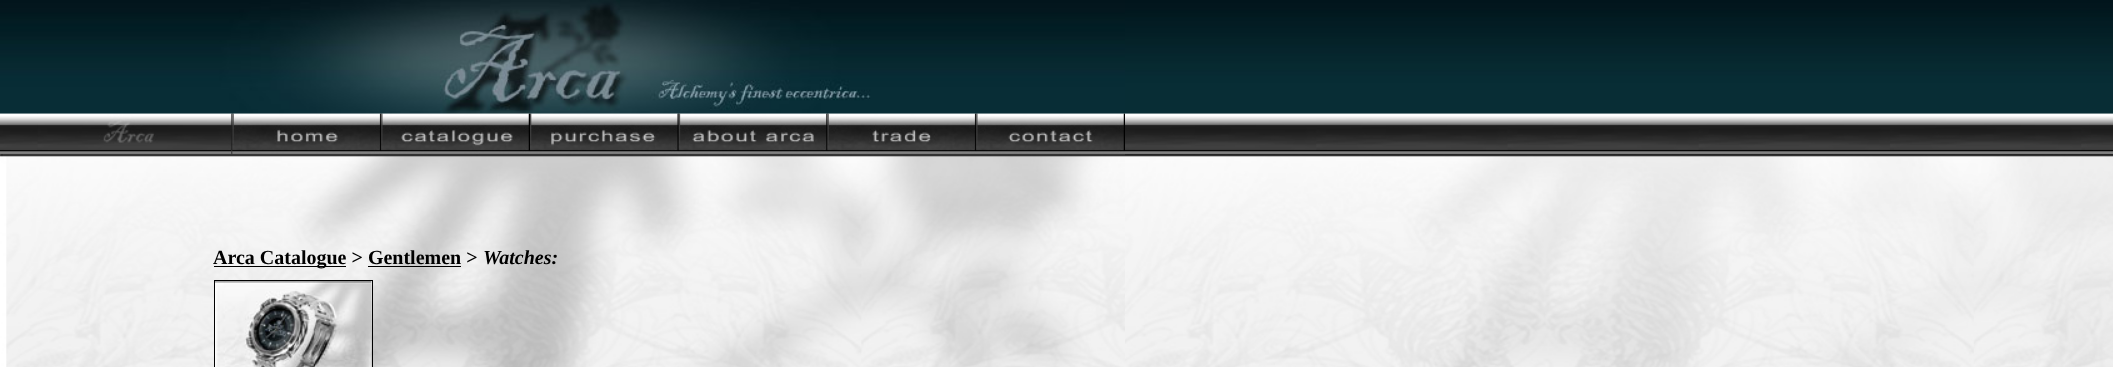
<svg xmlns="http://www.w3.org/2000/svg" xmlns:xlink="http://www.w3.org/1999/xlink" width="2113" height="367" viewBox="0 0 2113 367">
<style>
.cls-1{font:bold 20px Liberation Serif;fill:#000000}
.cls-2{font:italic bold 20px Liberation Serif;fill:#000000}
</style>
<rect width="100%" height="100%" fill="#ffffff"/>
<image xlink:href="image0.png" x="0" y="0" width="1125" height="114"/>
<image xlink:href="image1.png" x="1125" y="0" width="988" height="114"/>
<image xlink:href="image2.png" x="0" y="116" width="1125" height="38"/>
<image xlink:href="image12.png" x="0" y="153" width="1125" height="214"/>
<image xlink:href="image3.png" x="0" y="113" width="38" height="41"/>
<image xlink:href="image4.png" x="37" y="113" width="196" height="41"/>
<image xlink:href="image5.png" x="232" y="113" width="150" height="41"/>
<image xlink:href="image6.png" x="381" y="113" width="149" height="41"/>
<image xlink:href="image7.png" x="530" y="113" width="149" height="41"/>
<image xlink:href="image8.png" x="678" y="113" width="150" height="41"/>
<image xlink:href="image9.png" x="827" y="113" width="150" height="41"/>
<image xlink:href="image10.png" x="976" y="113" width="149" height="41"/>
<image xlink:href="image11.png" x="1125" y="113" width="988" height="41"/>
<rect fill="#000000" x="214" y="266" width="132" height="1"/>
<rect fill="#000000" x="368" y="266" width="93" height="1"/>
<rect fill="none" stroke="#000000" x="214.5" y="280.5" width="158" height="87"/>
<image xlink:href="image13.png" x="215" y="281" width="157" height="86"/>
<image xlink:href="image14.png" x="1125" y="153" width="988" height="214"/>
<text class="cls-1" x="213" y="264">Arca Catalogue &gt; Gentlemen &gt;</text>
<text class="cls-2" x="483" y="264">Watches:</text>
</svg>
